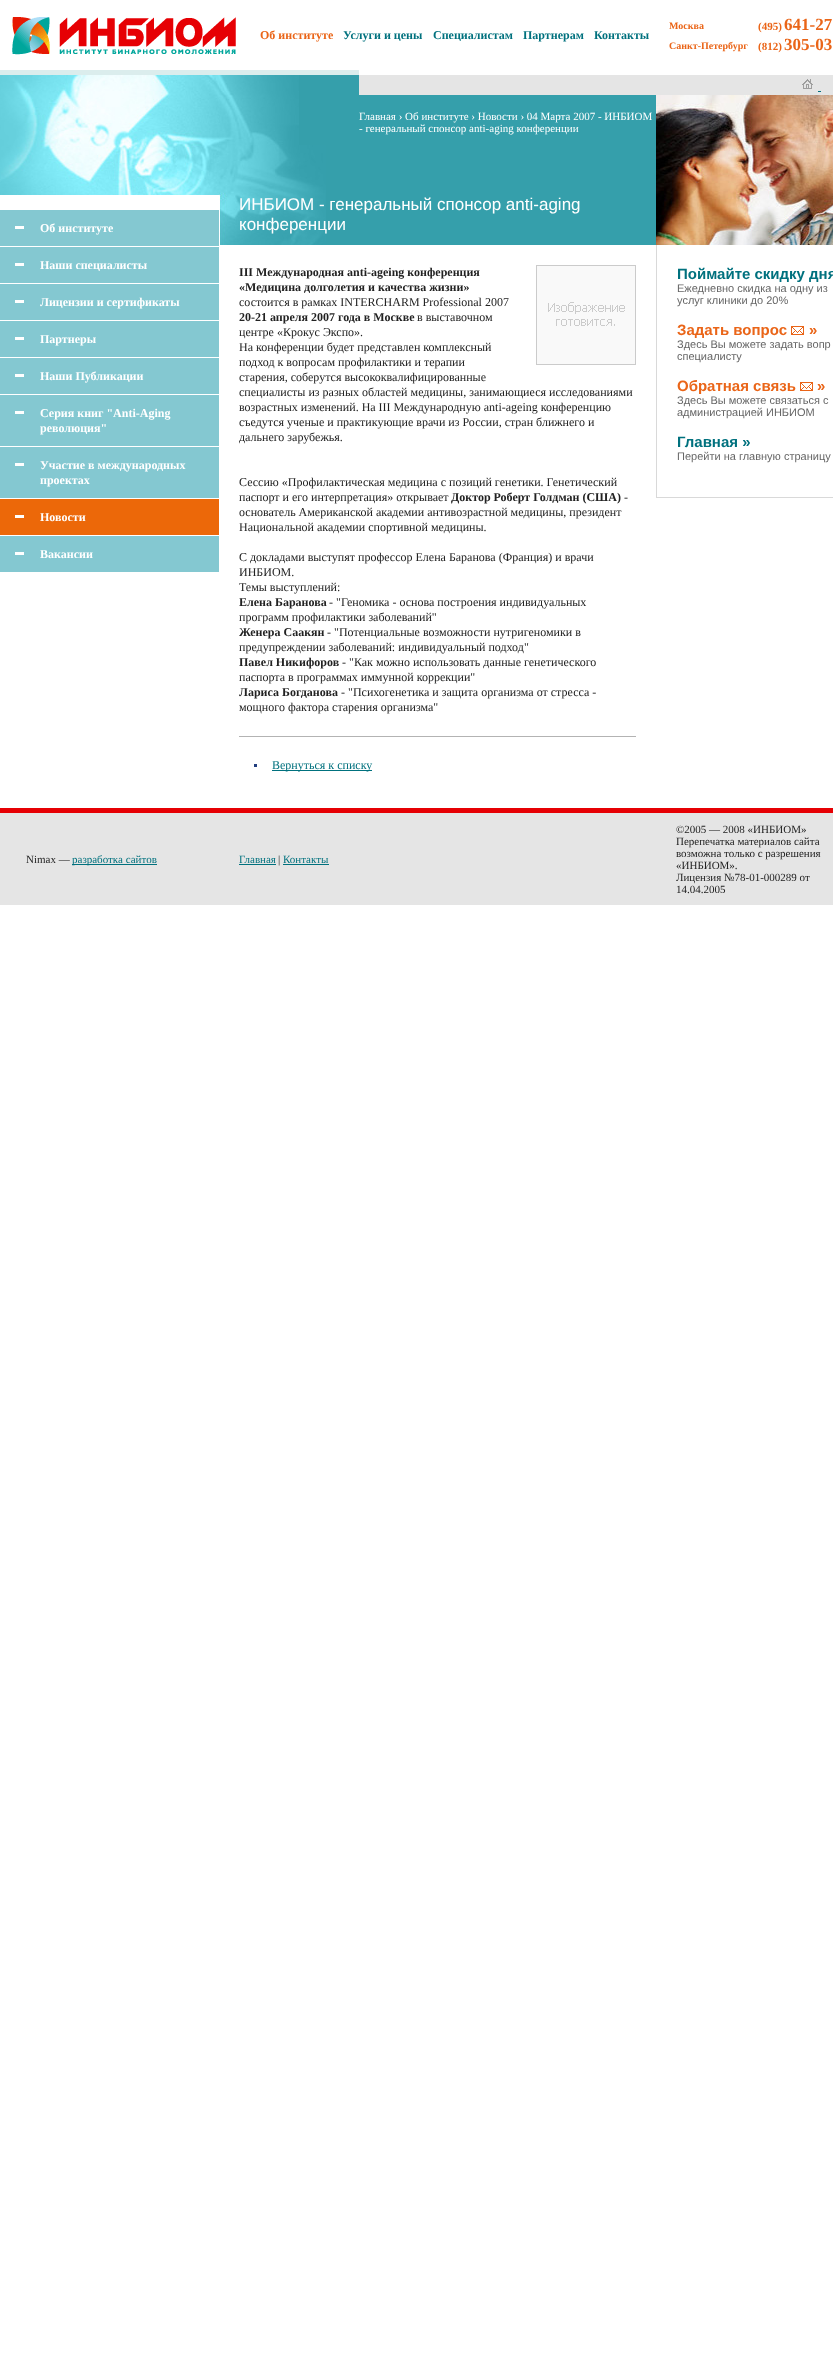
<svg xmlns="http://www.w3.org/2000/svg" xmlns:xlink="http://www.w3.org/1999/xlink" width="833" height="2367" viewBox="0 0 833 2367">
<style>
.cls-1{font:bold 12px Liberation Serif;fill:#ea6518}
.cls-2{font:bold 12px Liberation Serif;fill:#00717e}
.cls-3{font:bold 10px Liberation Serif;fill:#ea6518}
.cls-4{font:bold 11px Liberation Serif;fill:#ea6518}
.cls-5{font:bold 17px Liberation Serif;fill:#ea6518}
.cls-6{font:bold 12px Liberation Serif;fill:#ffffff}
.cls-7{font:11px Liberation Serif;fill:#ffffff}
.cls-8{font:17px Liberation Sans;fill:#ffffff}
.cls-9{font:bold 12px Liberation Serif;fill:#222222}
.cls-10{font:12px Liberation Serif;fill:#222222}
.cls-11{font:12px Liberation Serif;fill:#00717e}
.cls-12{font:bold 15px Liberation Sans;fill:#00717e}
.cls-13{font:11px Liberation Sans;fill:#666666}
.cls-14{font:bold 15px Liberation Sans;fill:#ea6518}
.cls-15{font:11px Liberation Serif;fill:#222222}
.cls-16{font:11px Liberation Serif;fill:#00717e}
</style>
<rect width="100%" height="100%" fill="#ffffff"/>
<image xlink:href="image0.png" x="12" y="17" width="224" height="38"/>
<rect fill="#dbeded" x="0" y="70" width="359" height="5"/>
<image xlink:href="image1.png" x="0" y="75" width="219" height="120"/>
<rect fill="#84c8d1" x="0" y="210" width="219" height="36"/>
<rect fill="#ffffff" x="15" y="226" width="9" height="3"/>
<rect fill="#84c8d1" x="0" y="247" width="219" height="36"/>
<rect fill="#ffffff" x="15" y="263" width="9" height="3"/>
<rect fill="#84c8d1" x="0" y="284" width="219" height="36"/>
<rect fill="#ffffff" x="15" y="300" width="9" height="3"/>
<rect fill="#84c8d1" x="0" y="321" width="219" height="36"/>
<rect fill="#ffffff" x="15" y="337" width="9" height="3"/>
<rect fill="#84c8d1" x="0" y="358" width="219" height="36"/>
<rect fill="#ffffff" x="15" y="374" width="9" height="3"/>
<rect fill="#84c8d1" x="0" y="395" width="219" height="51"/>
<rect fill="#ffffff" x="15" y="411" width="9" height="3"/>
<rect fill="#84c8d1" x="0" y="447" width="219" height="51"/>
<rect fill="#ffffff" x="15" y="463" width="9" height="3"/>
<rect fill="#ec6809" x="0" y="499" width="219" height="36"/>
<rect fill="#ffffff" x="15" y="515" width="9" height="3"/>
<rect fill="#84c8d1" x="0" y="536" width="219" height="36"/>
<rect fill="#ffffff" x="15" y="552" width="9" height="3"/>
<rect fill="#359fab" x="299" y="75" width="60" height="70"/>
<image xlink:href="image2.png" x="219" y="75" width="80" height="70"/>
<rect fill="#359fab" x="359" y="95" width="297" height="50"/>
<rect fill="#e5e5e5" x="359" y="75" width="474" height="20"/>
<rect fill="#359fab" x="326" y="145" width="330" height="100"/>
<image xlink:href="image3.png" x="219" y="145" width="107" height="100"/>
<image xlink:href="image4.png" x="536" y="265" width="100" height="100"/>
<rect fill="#b3b3b3" x="239" y="736" width="397" height="1"/>
<rect fill="#213d7e" x="254" y="764" width="3" height="3"/>
<rect fill="#00717e" x="272" y="770" width="100" height="1"/>
<image xlink:href="image5.png" x="802" y="79" width="11" height="10"/>
<rect fill="#00717e" x="818" y="91" width="3" height="1"/>
<image xlink:href="image6.png" x="656" y="95" width="177" height="150"/>
<rect fill="#d9d9d9" x="656" y="497" width="177" height="1"/>
<rect fill="#d9d9d9" x="656" y="245" width="1" height="253"/>
<image xlink:href="image7.png" x="791" y="326" width="13" height="9"/>
<image xlink:href="image7.png" x="800" y="382" width="13" height="9"/>
<rect fill="#e60004" x="0" y="808" width="833" height="5"/>
<rect fill="#e5e5e5" x="0" y="813" width="833" height="92"/>
<rect fill="#00717e" x="72" y="864" width="85" height="1"/>
<rect fill="#00717e" x="239" y="864" width="37" height="1"/>
<rect fill="#00717e" x="283" y="864" width="46" height="1"/>
<text class="cls-1" x="260" y="39">Об институте</text>
<text class="cls-2" x="343" y="39">Услуги и цены</text>
<text class="cls-2" x="433" y="39">Специалистам</text>
<text class="cls-2" x="523" y="39">Партнерам</text>
<text class="cls-2" x="594" y="39">Контакты</text>
<text class="cls-3" x="669" y="29">Москва</text>
<text class="cls-4" x="758" y="30">(495)</text>
<text class="cls-5" x="784" y="30">641-27</text>
<text class="cls-3" x="669" y="49">Санкт-Петербург</text>
<text class="cls-4" x="758" y="50">(812)</text>
<text class="cls-5" x="784" y="50">305-03</text>
<text class="cls-6" x="40" y="232">Об институте</text>
<text class="cls-6" x="40" y="269">Наши специалисты</text>
<text class="cls-6" x="40" y="306">Лицензии и сертификаты</text>
<text class="cls-6" x="40" y="343">Партнеры</text>
<text class="cls-6" x="40" y="380">Наши Публикации</text>
<text class="cls-6"><tspan x="40" y="417">Серия книг "Anti-Aging</tspan><tspan x="40" y="432">революция"</tspan></text>
<text class="cls-6"><tspan x="40" y="469">Участие в международных</tspan><tspan x="40" y="484">проектах</tspan></text>
<text class="cls-6" x="40" y="521">Новости</text>
<text class="cls-6" x="40" y="558">Вакансии</text>
<text class="cls-7"><tspan x="359" y="120">Главная › Об институте › Новости › 04 Марта 2007 - ИНБИОМ</tspan><tspan x="359" y="132">- генеральный спонсор anti-aging конференции</tspan></text>
<text class="cls-8"><tspan x="239" y="210">ИНБИОМ - генеральный спонсор anti-aging</tspan><tspan x="239" y="230">конференции</tspan></text>
<text class="cls-9"><tspan x="239" y="276">III Международная anti-ageing конференция</tspan><tspan x="239" y="291">«Медицина долголетия и качества жизни»</tspan></text>
<text class="cls-10" x="239" y="306">состоится в рамках INTERCHARM Professional 2007</text>
<text class="cls-9" x="239" y="321">20-21 апреля 2007 года в Москве</text>
<text class="cls-10" x="417" y="321">в выставочном</text>
<text class="cls-10"><tspan x="239" y="336">центре «Крокус Экспо».</tspan><tspan x="239" y="351">На конференции будет представлен комплексный</tspan><tspan x="239" y="366">подход к вопросам профилактики и терапии</tspan><tspan x="239" y="381">старения, соберутся высококвалифицированные</tspan><tspan x="239" y="396">специалисты из разных областей медицины, занимающиеся исследованиями</tspan><tspan x="239" y="411">возрастных изменений. На III Международную anti-ageing конференцию</tspan><tspan x="239" y="426">съедутся ученые и практикующие врачи из России, стран ближнего и</tspan><tspan x="239" y="441">дальнего зарубежья.</tspan></text>
<text class="cls-10"><tspan x="239" y="486">Сессию «Профилактическая медицина с позиций генетики. Генетический</tspan><tspan x="239" y="501">паспорт и его интерпретация» открывает</tspan></text>
<text class="cls-9" x="451" y="501">Доктор Роберт Голдман (США)</text>
<text class="cls-10" x="624" y="501">-</text>
<text class="cls-10"><tspan x="239" y="516">основатель Американской академии антивозрастной медицины, президент</tspan><tspan x="239" y="531">Национальной академии спортивной медицины.</tspan></text>
<text class="cls-10"><tspan x="239" y="561">С докладами выступят профессор Елена Баранова (Франция) и врачи</tspan><tspan x="239" y="576">ИНБИОМ.</tspan><tspan x="239" y="591">Темы выступлений:</tspan></text>
<text class="cls-9" x="239" y="606">Елена Баранова</text>
<text class="cls-10" x="329" y="606">- "Геномика - основа построения индивидуальных</text>
<text class="cls-10" x="239" y="621">программ профилактики заболеваний"</text>
<text class="cls-9" x="239" y="636">Женера Саакян</text>
<text class="cls-10" x="327" y="636">- "Потенциальные возможности нутригеномики в</text>
<text class="cls-10" x="239" y="651">предупреждении заболеваний: индивидуальный подход"</text>
<text class="cls-9" x="239" y="666">Павел Никифоров</text>
<text class="cls-10" x="342" y="666">- "Как можно использовать данные генетического</text>
<text class="cls-10" x="239" y="681">паспорта в программах иммунной коррекции"</text>
<text class="cls-9" x="239" y="696">Лариса Богданова</text>
<text class="cls-10" x="341" y="696">- "Психогенетика и защита организма от стресса -</text>
<text class="cls-10" x="239" y="711">мощного фактора старения организма"</text>
<text class="cls-11" x="272" y="769">Вернуться к списку</text>
<text class="cls-12" x="677" y="279">Поймайте скидку дня</text>
<text class="cls-13"><tspan x="677" y="292">Ежедневно скидка на одну из</tspan><tspan x="677" y="304">услуг клиники до 20%</tspan></text>
<text class="cls-14" x="677" y="335">Задать вопрос</text>
<text class="cls-14" x="809" y="335">»</text>
<text class="cls-13"><tspan x="677" y="348">Здесь Вы можете задать вопр</tspan><tspan x="677" y="360">специалисту</tspan></text>
<text class="cls-14" x="677" y="391">Обратная связь</text>
<text class="cls-14" x="817" y="391">»</text>
<text class="cls-13"><tspan x="677" y="404">Здесь Вы можете связаться с</tspan><tspan x="677" y="416">администрацией ИНБИОМ</tspan></text>
<text class="cls-12" x="677" y="447">Главная »</text>
<text class="cls-13" x="677" y="460">Перейти на главную страницу</text>
<text class="cls-15" x="26" y="863">Nimax —</text>
<text class="cls-16" x="72" y="863">разработка сайтов</text>
<text class="cls-16" x="239" y="863">Главная</text>
<text class="cls-15" x="278" y="863">|</text>
<text class="cls-16" x="283" y="863">Контакты</text>
<text class="cls-15"><tspan x="676" y="833">©2005 — 2008 «ИНБИОМ»</tspan><tspan x="676" y="845">Перепечатка материалов сайта</tspan><tspan x="676" y="857">возможна только с разрешения</tspan><tspan x="676" y="869">«ИНБИОМ».</tspan><tspan x="676" y="881">Лицензия №78-01-000289 от</tspan><tspan x="676" y="893">14.04.2005</tspan></text>
</svg>
